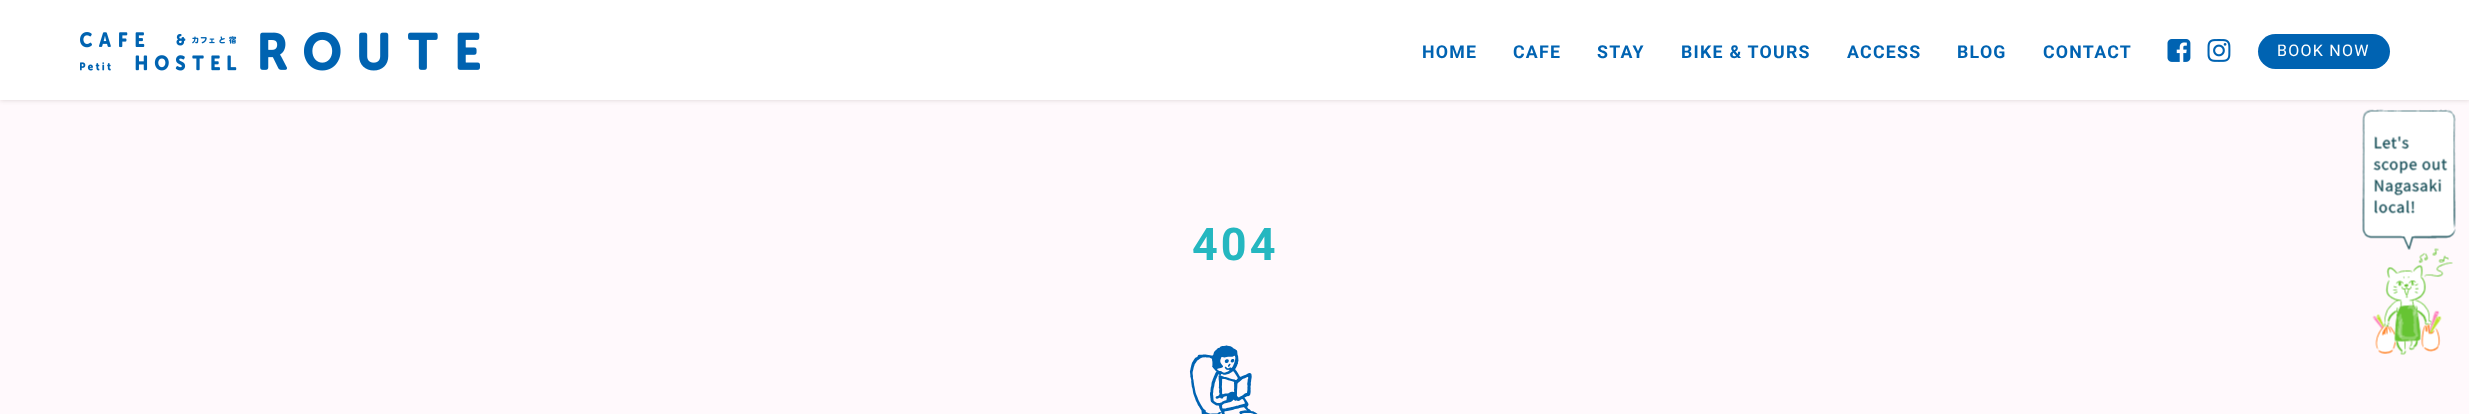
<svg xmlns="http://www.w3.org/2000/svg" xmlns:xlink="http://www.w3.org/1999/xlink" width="2469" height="414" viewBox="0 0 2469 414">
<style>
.cls-1{font:bold 17.75px Roboto;letter-spacing:1.25px;fill:#0063b2}
.cls-2{font:16px Roboto;letter-spacing:1.25px;fill:#ffffff}
.cls-3{font:bold 45px Roboto;letter-spacing:3px;fill:#25b7c0}
</style>
<rect width="100%" height="100%" fill="#fff9fc"/>
<rect fill="#4d352e" fill-opacity="0.2" filter="blur(2.5px)" x="0" y="0" width="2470" height="100"/>
<rect fill="#ffffff" x="0" y="0" width="2469" height="100"/>
<image xlink:href="image0.png" x="80" y="32" width="400" height="39"/>
<image xlink:href="image1.png" x="2167" y="39" width="24" height="23"/>
<image xlink:href="image2.png" x="2207" y="39" width="24" height="23"/>
<rect fill="#0063b2" x="2258" y="34" width="132" height="35" rx="17.5"/>
<image xlink:href="image3.png" x="1189" y="345" width="69" height="69"/>
<image xlink:href="image4.png" x="2362" y="109" width="94" height="246"/>
<text class="cls-1" x="1422" y="58">HOME</text>
<text class="cls-1" x="1513" y="58">CAFE</text>
<text class="cls-1" x="1597" y="58">STAY</text>
<text class="cls-1" x="1681" y="58">BIKE &amp; TOURS</text>
<text class="cls-1" x="1847" y="58">ACCESS</text>
<text class="cls-1" x="1957" y="58">BLOG</text>
<text class="cls-1" x="2043" y="58">CONTACT</text>
<text class="cls-2" x="2277" y="56">BOOK NOW</text>
<text class="cls-3" x="1192" y="260">404</text>
</svg>
